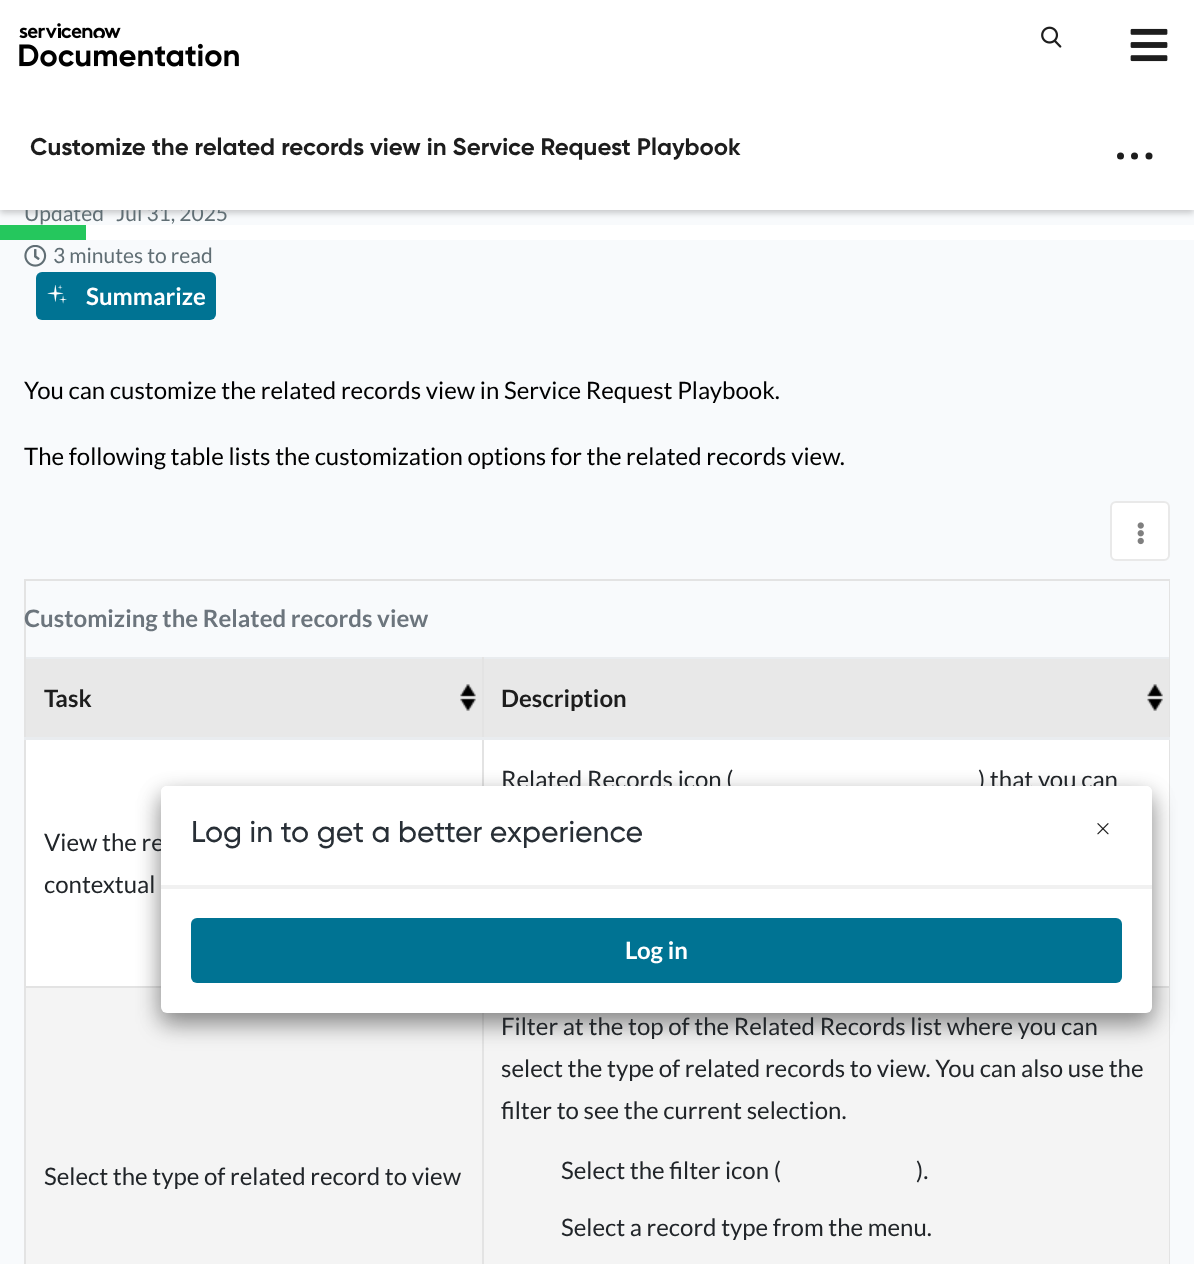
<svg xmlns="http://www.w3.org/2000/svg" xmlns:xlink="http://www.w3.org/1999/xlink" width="1194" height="1264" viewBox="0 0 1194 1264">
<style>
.cls-1{font:21px Lato;fill:#606e74}
.cls-2{font:bold 24px Gilroy;fill:#1d1d1d}
.cls-3{font:bold 24px Lato;fill:#ffffff}
.cls-4{font:24px Lato;fill:#000000}
.cls-5{font:bold 24px Lato;fill:#6c757d}
.cls-6{font:bold 24px Lato;fill:#1d1d1d}
.cls-7{font:24px Lato;fill:#212529}
.cls-8{font:500 30px Gilroy;fill:#282f36}
</style>
<rect width="100%" height="100%" fill="#f8fafc"/>
<rect fill="#000000" fill-opacity="0.2" filter="blur(3px)" x="0" y="93" width="1194" height="120"/>
<rect fill="#25c75d" x="0" y="225" width="86" height="15"/>
<rect fill="#ffffff" x="86" y="225" width="1108" height="15"/>
<image xlink:href="image3.png" x="24" y="245" width="23" height="22"/>
<rect fill="#007393" x="36" y="272" width="180" height="48" rx="6"/>
<image xlink:href="image4.png" x="47" y="284" width="20" height="20"/>
<rect fill="#ffffff" stroke="#e9e9e9" stroke-width="2" x="1111" y="502" width="58" height="58" rx="5"/>
<image xlink:href="image5.png" x="1137" y="522" width="7" height="23"/>
<rect fill="#e3e3e3" x="24" y="579" width="1146" height="2"/>
<rect fill="#e3e3e3" x="1169" y="579" width="1" height="78"/>
<rect fill="#e3e3e3" x="24" y="579" width="2" height="78"/>
<rect fill="#e8e8e8" x="484" y="711" width="685" height="26"/>
<image xlink:href="image6.png" x="26" y="659" width="456" height="78"/>
<rect fill="#e9ecef" x="24" y="657" width="1146" height="2"/>
<rect fill="#ffffff" x="26" y="740" width="1143" height="246"/>
<rect fill="#e3e3e3" x="482" y="738" width="2" height="48"/>
<rect fill="#e3e3e3" x="482" y="657" width="2" height="83"/>
<rect fill="#e3e3e3" x="24" y="986" width="2" height="278"/>
<rect fill="#e3e3e3" x="24" y="986" width="137" height="2"/>
<rect fill="#e3e3e3" x="24" y="738" width="2" height="249"/>
<rect fill="#e3e3e3" x="24" y="657" width="2" height="83"/>
<image xlink:href="image7.png" x="484" y="659" width="685" height="52"/>
<rect fill="#e3e3e3" x="1169" y="738" width="1" height="526"/>
<rect fill="#e3e3e3" x="1169" y="657" width="1" height="83"/>
<rect fill="#e9ecef" x="24" y="737" width="1146" height="3"/>
<rect fill="#e3e3e3" x="1152" y="986" width="18" height="2"/>
<rect fill="#f4f4f4" x="26" y="988" width="1143" height="276"/>
<rect fill="#e3e3e3" x="482" y="1013" width="2" height="251"/>
<rect fill="#000000" fill-opacity="0.25" filter="blur(11px)" x="161" y="794" width="991" height="226" rx="6"/>
<rect fill="#000000" fill-opacity="0.27" filter="blur(12px)" x="161" y="798" width="991" height="227" rx="6"/>
<text class="cls-1" x="24" y="221">Updated</text>
<text class="cls-1" x="116" y="221">Jul 31, 2025</text>
<rect fill="#ffffff" x="0" y="0" width="1194" height="210"/>
<image xlink:href="image2.png" x="1130" y="28" width="38" height="34"/>
<image xlink:href="image1.png" x="1041" y="26" width="21" height="22"/>
<image xlink:href="image0.png" x="19" y="23" width="220" height="44"/>
<circle fill="#1d1d1d" cx="1149" cy="156" r="3.5"/>
<circle fill="#1d1d1d" cx="1134.5" cy="156" r="3.5"/>
<circle fill="#1d1d1d" cx="1120.5" cy="156" r="3.5"/>
<text class="cls-2" x="30" y="155">Customize the related records view in Service Request Playbook</text>
<text class="cls-1" x="53" y="263">3 minutes to read</text>
<text class="cls-3" x="86" y="305">Summarize</text>
<text class="cls-4" x="24" y="399">You can customize the related records view in Service Request Playbook.</text>
<text class="cls-4" x="24" y="465">The following table lists the customization options for the related records view.</text>
<text class="cls-5" x="24" y="627">Customizing the Related records view</text>
<text class="cls-6" x="44" y="707">Task</text>
<text class="cls-6" x="501" y="707">Description</text>
<text class="cls-7" x="501" y="788">Related Records icon (</text>
<text class="cls-7" x="978" y="788">) that you can</text>
<text class="cls-7"><tspan x="44" y="851">View the re</tspan><tspan x="44" y="893">contextual</tspan></text>
<text class="cls-7" x="44" y="1185">Select the type of related record to view</text>
<text class="cls-7"><tspan x="501" y="1035">Filter at the top of the Related Records list where you can</tspan><tspan x="501" y="1077">select the type of related records to view. You can also use the</tspan><tspan x="501" y="1119">filter to see the current selection.</tspan></text>
<text class="cls-7" x="561" y="1179">Select the filter icon (</text>
<text class="cls-7" x="916" y="1179">).</text>
<text class="cls-7" x="561" y="1236">Select a record type from the menu.</text>
<rect fill="#ffffff" x="161" y="786" width="991" height="227" rx="6"/>
<path fill="#ffffff" d="M167 786H1146C1149.5 786 1152 788.5 1152 792V887H161V792C161 788.5 163.5 786 167 786Z"/>
<rect fill="#f1f1f1" x="161" y="885" width="991" height="4"/>
<text class="cls-8" x="191" y="842">Log in to get a better experience</text>
<image xlink:href="image8.png" x="1097" y="823" width="12" height="12"/>
<rect fill="#007393" x="191" y="918" width="931" height="65" rx="6"/>
<text class="cls-3" x="625" y="959">Log in</text>
</svg>
